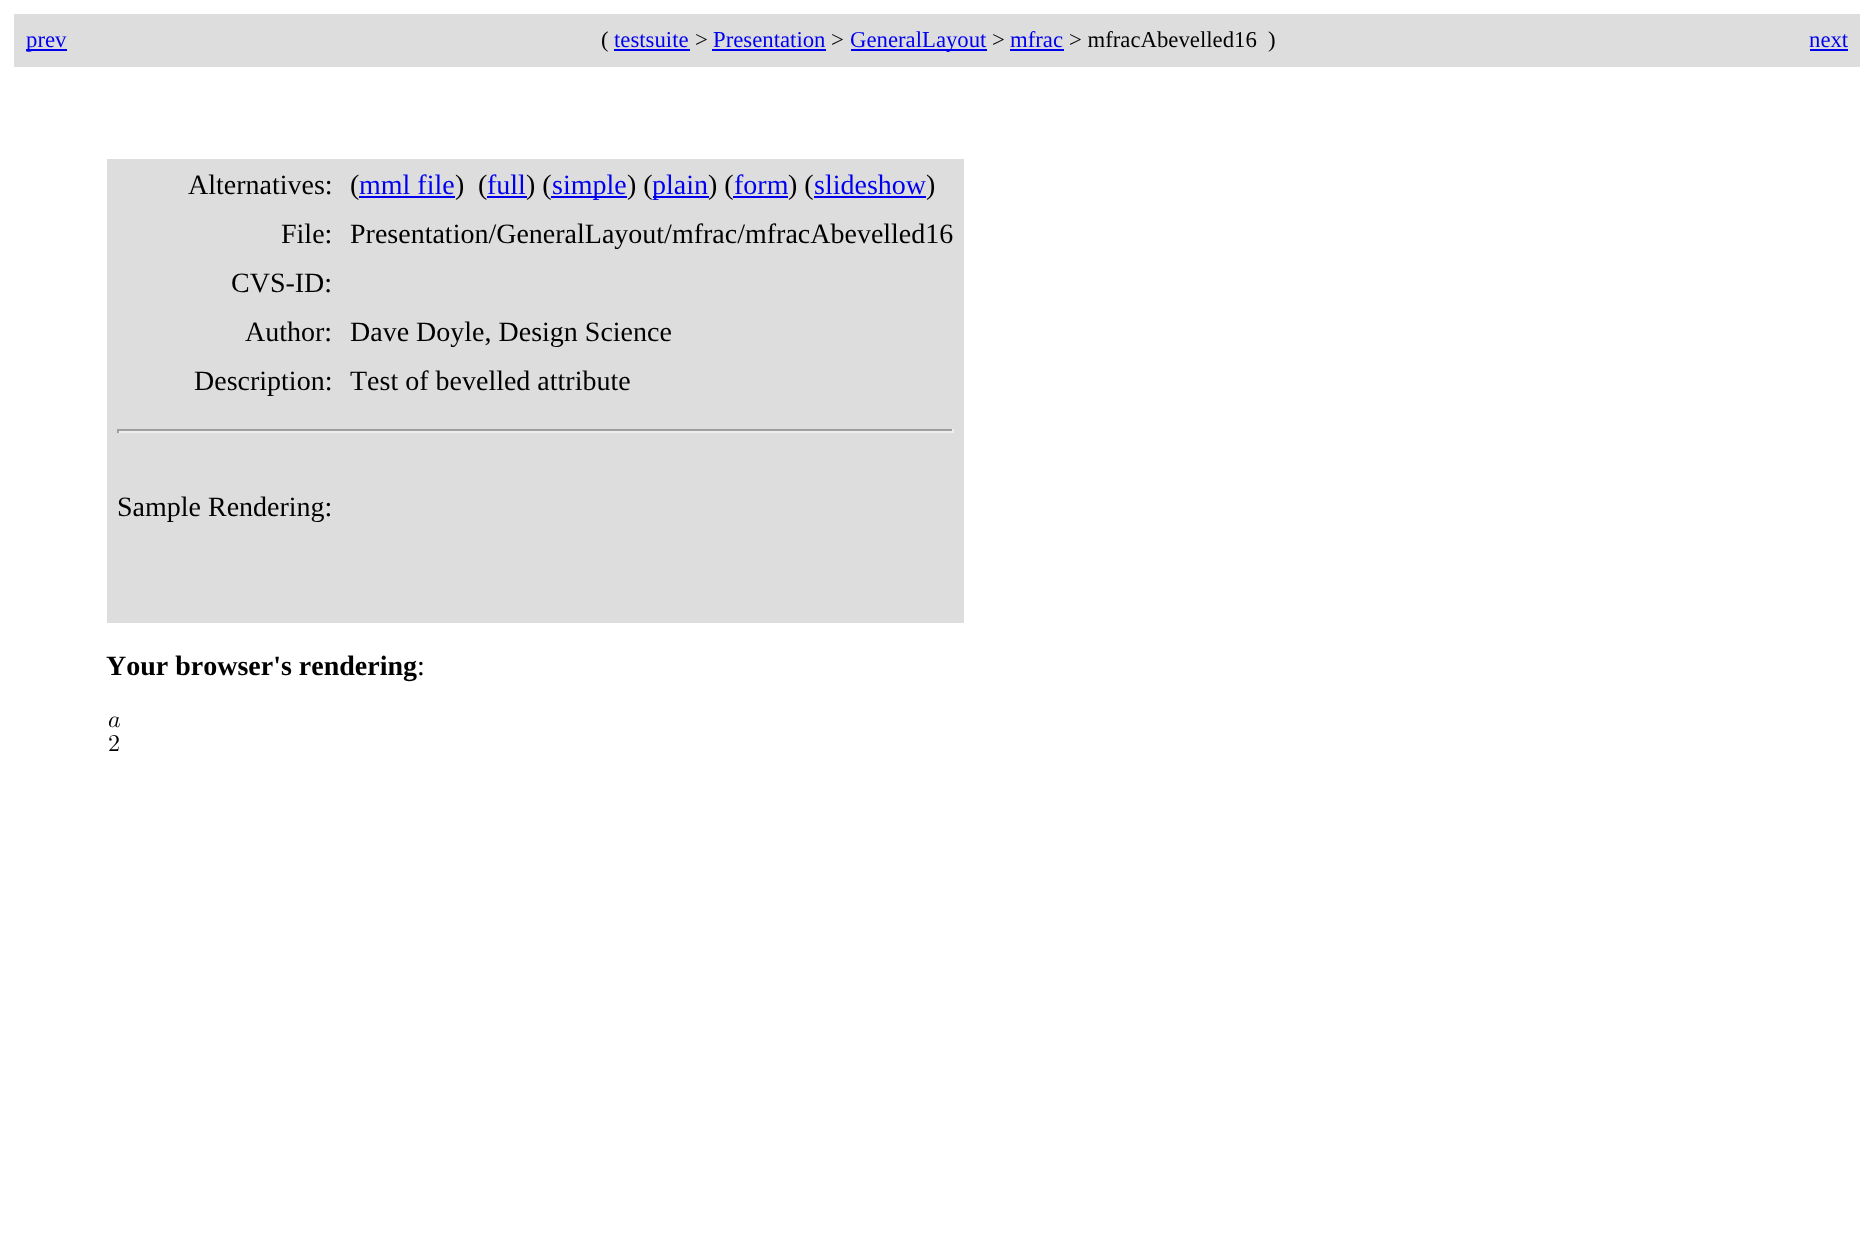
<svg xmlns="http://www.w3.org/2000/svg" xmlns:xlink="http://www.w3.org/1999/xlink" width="1873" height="1260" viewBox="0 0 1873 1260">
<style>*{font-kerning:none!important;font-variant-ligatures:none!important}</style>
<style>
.cls-1{font:22.75px Liberation Serif;fill:#0000ee}
.cls-2{font:22.75px Liberation Serif;fill:#000000}
.cls-3{font:28px Liberation Serif;fill:#000000}
.cls-4{font:28px Liberation Serif;fill:#0000ee}
.cls-5{font:bold 28px Liberation Serif;fill:#000000}
.cls-6{font:24px Latin Modern Math;fill:#000000}
</style>
<rect width="100%" height="100%" fill="#ffffff"/>
<rect fill="#dddddd" x="14" y="14" width="1846" height="53"/>
<rect fill="#0000ee" x="26" y="49" width="41" height="2"/>
<rect fill="#0000ee" x="614" y="49" width="76" height="2"/>
<rect fill="#0000ee" x="712" y="49" width="114" height="2"/>
<rect fill="#0000ee" x="851" y="49" width="136" height="2"/>
<rect fill="#0000ee" x="1010" y="49" width="54" height="2"/>
<rect fill="#0000ee" x="1810" y="49" width="38" height="2"/>
<rect fill="#dddddd" x="107" y="159" width="857" height="464"/>
<rect fill="#0000ee" x="359" y="196" width="96" height="2"/>
<rect fill="#0000ee" x="487" y="196" width="40" height="2"/>
<rect fill="#0000ee" x="551" y="196" width="76" height="2"/>
<rect fill="#0000ee" x="653" y="196" width="56" height="2"/>
<rect fill="#0000ee" x="733" y="196" width="55" height="2"/>
<rect fill="#0000ee" x="814" y="196" width="112" height="2"/>
<rect fill="#9f9f9f" x="117" y="429" width="837" height="2"/>
<rect fill="#eeeeee" x="952" y="429" width="2" height="4"/>
<rect fill="#eeeeee" x="117" y="431" width="837" height="2"/>
<rect fill="#9f9f9f" x="117" y="429" width="2" height="4"/>
<text class="cls-1" x="26" y="47">prev</text>
<text class="cls-2" x="601" y="47">(</text>
<text class="cls-1" x="614" y="47">testsuite</text>
<text class="cls-2" x="695" y="47">&gt;</text>
<text class="cls-1" x="713" y="47">Presentation</text>
<text class="cls-2" x="831" y="47">&gt;</text>
<text class="cls-1" x="850" y="47">GeneralLayout</text>
<text class="cls-2" x="992" y="47">&gt;</text>
<text class="cls-1" x="1010" y="47">mfrac</text>
<text class="cls-2" x="1069" y="47">&gt; mfracAbevelled16</text>
<text class="cls-2" x="1268" y="47">)</text>
<text class="cls-1" x="1809" y="47">next</text>
<text class="cls-3" x="188" y="194">Alternatives:</text>
<text class="cls-3" x="350" y="194">(</text>
<text class="cls-4" x="359" y="194">mml file</text>
<text class="cls-3" x="455" y="194">)</text>
<text class="cls-3" x="478" y="194">(</text>
<text class="cls-4" x="487" y="194">full</text>
<text class="cls-3" x="526" y="194">) (</text>
<text class="cls-4" x="552" y="194">simple</text>
<text class="cls-3" x="627" y="194">) (</text>
<text class="cls-4" x="652" y="194">plain</text>
<text class="cls-3" x="708" y="194">) (</text>
<text class="cls-4" x="734" y="194">form</text>
<text class="cls-3" x="788" y="194">) (</text>
<text class="cls-4" x="814" y="194">slideshow</text>
<text class="cls-3" x="926" y="194">)</text>
<text class="cls-3" x="281" y="243">File:</text>
<text class="cls-3" x="350" y="243">Presentation/GeneralLayout/mfrac/mfracAbevelled16</text>
<text class="cls-3" x="231" y="292">CVS-ID:</text>
<text class="cls-3" x="245" y="341">Author:</text>
<text class="cls-3" x="350" y="341">Dave Doyle, Design Science</text>
<text class="cls-3" x="194" y="390">Description:</text>
<text class="cls-3" x="350" y="390">Test of bevelled attribute</text>
<text class="cls-3" x="117" y="516">Sample Rendering:</text>
<text class="cls-5" x="106" y="675">Your browser's rendering</text>
<text class="cls-3" x="417" y="675">:</text>
<text class="cls-6"><tspan x="108" y="727">𝑎</tspan><tspan x="108" y="751">2</tspan></text>
</svg>
